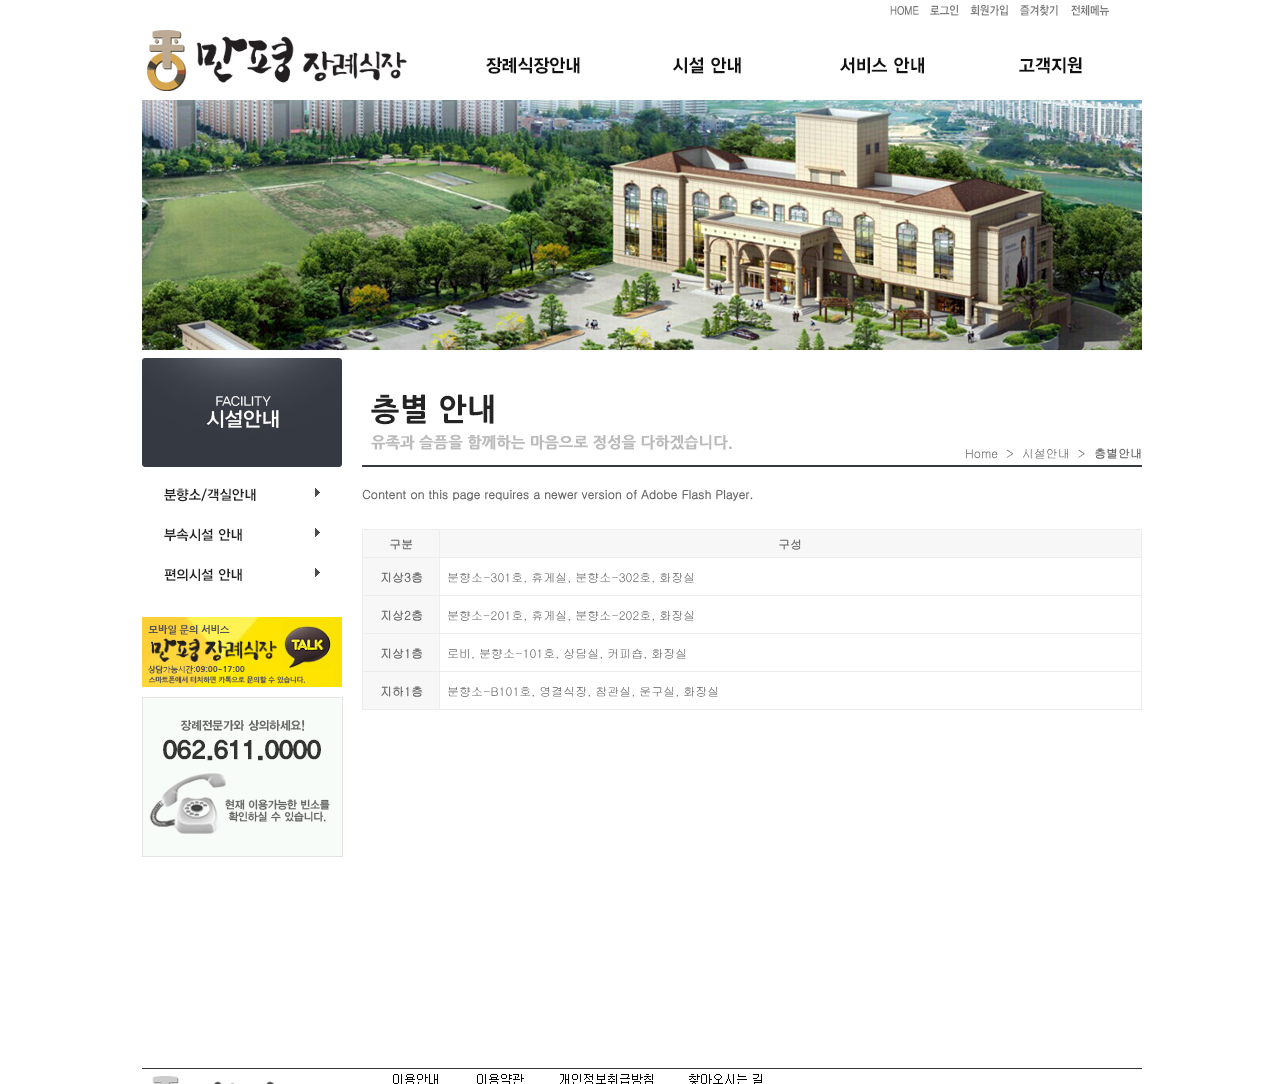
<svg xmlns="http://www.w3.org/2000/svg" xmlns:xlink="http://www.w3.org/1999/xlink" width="1283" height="1084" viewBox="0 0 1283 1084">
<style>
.cls-1{font:12px Gulim;fill:#666666}
.cls-2{font:bold 12px Gulim;fill:#666666}
</style>
<rect width="100%" height="100%" fill="#ffffff"/>
<image xlink:href="image0.png" x="890" y="6" width="29" height="9"/>
<image xlink:href="image1.png" x="930" y="5" width="29" height="11"/>
<image xlink:href="image2.png" x="970" y="4" width="38" height="12"/>
<image xlink:href="image3.png" x="1020" y="5" width="38" height="11"/>
<image xlink:href="image4.png" x="1071" y="5" width="38" height="11"/>
<image xlink:href="image5.png" x="147" y="30" width="260" height="61"/>
<image xlink:href="image6.png" x="486" y="57" width="94" height="17"/>
<image xlink:href="image7.png" x="672" y="57" width="69" height="17"/>
<image xlink:href="image8.png" x="840" y="57" width="84" height="17"/>
<image xlink:href="image9.png" x="1019" y="57" width="63" height="17"/>
<image xlink:href="image10.png" x="142" y="100" width="1000" height="250"/>
<image xlink:href="image11.png" x="142" y="358" width="200" height="109"/>
<image xlink:href="image12.png" x="164" y="488" width="156" height="14"/>
<image xlink:href="image13.png" x="164" y="528" width="156" height="13"/>
<image xlink:href="image14.png" x="164" y="568" width="156" height="13"/>
<image xlink:href="image15.png" x="142" y="617" width="200" height="70"/>
<image xlink:href="image16.png" x="142" y="697" width="201" height="160"/>
<image xlink:href="image17.png" x="371" y="394" width="123" height="31"/>
<image xlink:href="image18.png" x="362" y="434" width="780" height="33"/>
<rect fill="#f7f7f7" x="363" y="530" width="76" height="27"/>
<rect fill="#ededed" x="439" y="529" width="703" height="1"/>
<rect fill="#ededed" x="439" y="557" width="703" height="1"/>
<rect fill="#ededed" x="439" y="595" width="703" height="1"/>
<rect fill="#ededed" x="439" y="633" width="703" height="1"/>
<rect fill="#ededed" x="439" y="671" width="703" height="1"/>
<rect fill="#ededed" x="1141" y="671" width="1" height="39"/>
<rect fill="#ededed" x="439" y="709" width="703" height="1"/>
<rect fill="#ededed" x="439" y="671" width="1" height="39"/>
<rect fill="#ededed" x="362" y="671" width="78" height="1"/>
<rect fill="#ededed" x="439" y="633" width="1" height="39"/>
<rect fill="#ededed" x="362" y="633" width="78" height="1"/>
<rect fill="#ededed" x="439" y="595" width="1" height="39"/>
<rect fill="#ededed" x="362" y="595" width="78" height="1"/>
<rect fill="#ededed" x="439" y="557" width="1" height="39"/>
<rect fill="#ededed" x="362" y="557" width="78" height="1"/>
<rect fill="#ededed" x="439" y="529" width="1" height="29"/>
<rect fill="#ededed" x="362" y="529" width="78" height="1"/>
<rect fill="#ededed" x="362" y="709" width="78" height="1"/>
<rect fill="#ededed" x="362" y="671" width="1" height="39"/>
<rect fill="#ededed" x="362" y="633" width="1" height="39"/>
<rect fill="#ededed" x="362" y="595" width="1" height="39"/>
<rect fill="#ededed" x="362" y="557" width="1" height="39"/>
<rect fill="#ededed" x="362" y="529" width="1" height="29"/>
<rect fill="#f7f7f7" x="440" y="530" width="701" height="27"/>
<rect fill="#ededed" x="1141" y="633" width="1" height="39"/>
<rect fill="#ededed" x="1141" y="595" width="1" height="39"/>
<rect fill="#ededed" x="1141" y="557" width="1" height="39"/>
<rect fill="#ededed" x="1141" y="529" width="1" height="29"/>
<rect fill="#f7f7f7" x="363" y="558" width="76" height="37"/>
<rect fill="#f7f7f7" x="363" y="596" width="76" height="37"/>
<rect fill="#f7f7f7" x="363" y="634" width="76" height="37"/>
<rect fill="#f7f7f7" x="363" y="672" width="76" height="37"/>
<rect fill="#343434" x="142" y="1068" width="1000" height="1"/>
<image xlink:href="image19.png" x="152" y="1076" width="122" height="8"/>
<image xlink:href="image20.png" x="393" y="1074" width="369" height="10"/>
<text class="cls-1" xml:space="preserve" x="965" y="458">Home  &gt;  시설안내  &gt;</text>
<text class="cls-2" x="1094" y="458">층별안내</text>
<text class="cls-2" x="362" y="499">Content on this page requires a newer version of Adobe Flash Player.</text>
<text class="cls-2" x="389" y="549">구분</text>
<text class="cls-2" x="778" y="549">구성</text>
<text class="cls-2" x="380" y="582">지상3층</text>
<text class="cls-1" x="447" y="582">분향소-301호, 휴게실, 분향소-302호, 화장실</text>
<text class="cls-2" x="380" y="620">지상2층</text>
<text class="cls-1" x="447" y="620">분향소-201호, 휴게실, 분향소-202호, 화장실</text>
<text class="cls-2" x="380" y="658">지상1층</text>
<text class="cls-1" x="447" y="658">로비, 분향소-101호, 상담실, 커피숍, 화장실</text>
<text class="cls-2" x="380" y="696">지하1층</text>
<text class="cls-1" x="447" y="696">분향소-B101호, 영결식장, 참관실, 운구실, 화장실</text>
</svg>
